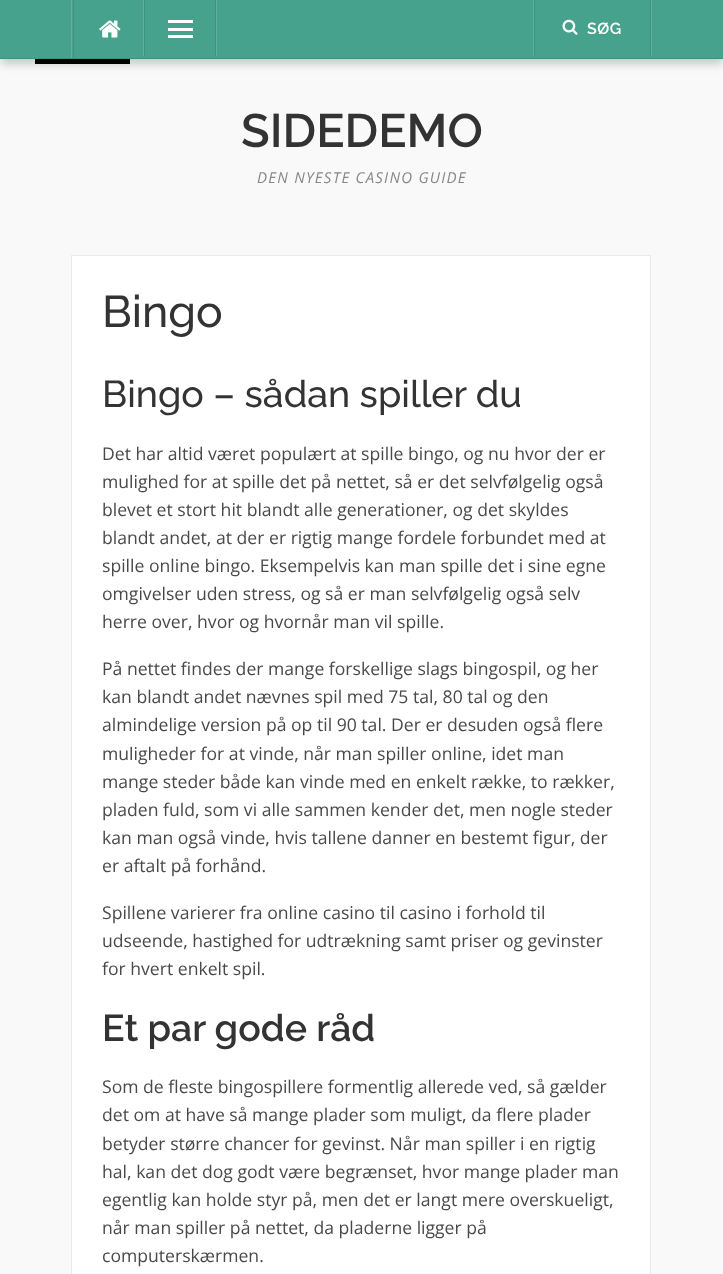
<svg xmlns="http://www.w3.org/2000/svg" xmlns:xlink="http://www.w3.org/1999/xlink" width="723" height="1274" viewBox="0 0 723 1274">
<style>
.cls-1{font:600 16px Raleway;letter-spacing:0.5px;fill:#ffffff}
.cls-2{font:600 47px Raleway;fill:#333333}
.cls-3{font:italic 15px Open Sans;letter-spacing:1.25px;fill:#888888}
.cls-4{font:500 44.5px Raleway;fill:#333333}
.cls-5{font:500 37.5px Raleway;fill:#333333}
.cls-6{font:17.6px Open Sans;fill:#494949}
.cls-7{font:600 37.5px Raleway;fill:#333333}
</style>
<rect width="100%" height="100%" fill="#f9f9f9"/>
<rect fill="#000000" x="35" y="59" width="95" height="5"/>
<rect fill="#000000" fill-opacity="0.2" filter="blur(5px)" x="1" y="8" width="722" height="56"/>
<rect fill="#46a28d" x="0" y="0" width="723" height="58"/>
<rect fill="#62b09e" x="71" y="0" width="1" height="58"/>
<rect fill="#3f927f" x="73" y="0" width="1" height="58"/>
<image xlink:href="image0.png" x="99" y="20" width="22" height="18"/>
<rect fill="#62b09e" x="143" y="0" width="1" height="56"/>
<rect fill="#3f927f" x="144" y="0" width="1" height="56"/>
<rect fill="#ffffff" x="168" y="28" width="25" height="3"/>
<rect fill="#ffffff" x="168" y="20" width="25" height="3"/>
<rect fill="#ffffff" x="168" y="35" width="25" height="3"/>
<rect fill="#3f927f" x="215" y="0" width="1" height="56"/>
<rect fill="#62b09e" x="216" y="0" width="1" height="56"/>
<rect fill="#62b09e" x="533" y="0" width="1" height="56"/>
<rect fill="#3f927f" x="534" y="0" width="1" height="56"/>
<image xlink:href="image1.png" x="562" y="19" width="16" height="16"/>
<rect fill="#3f927f" x="650" y="0" width="1" height="56"/>
<rect fill="#62b09e" x="651" y="0" width="1" height="56"/>
<rect fill="#3f927f" x="0" y="58" width="723" height="1"/>
<rect fill="#ffffff" stroke="#e9e9e9" x="71.5" y="255.5" width="579" height="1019"/>
<text class="cls-1" x="587" y="34">SØG</text>
<text class="cls-2" x="241" y="147">SIDEDEMO</text>
<text class="cls-3" x="257" y="183">DEN NYESTE CASINO GUIDE</text>
<text class="cls-4" x="102" y="327">Bingo</text>
<text class="cls-5" x="102" y="407">Bingo – sådan spiller du</text>
<text class="cls-6"><tspan x="102" y="460">Det har altid været populært at spille bingo, og nu hvor der er</tspan><tspan x="102" y="488">mulighed for at spille det på nettet, så er det selvfølgelig også</tspan><tspan x="102" y="516">blevet et stort hit blandt alle generationer, og det skyldes</tspan><tspan x="102" y="544">blandt andet, at der er rigtig mange fordele forbundet med at</tspan><tspan x="102" y="572">spille online bingo. Eksempelvis kan man spille det i sine egne</tspan><tspan x="102" y="600">omgivelser uden stress, og så er man selvfølgelig også selv</tspan><tspan x="102" y="628">herre over, hvor og hvornår man vil spille.</tspan></text>
<text class="cls-6"><tspan x="102" y="675">På nettet findes der mange forskellige slags bingospil, og her</tspan><tspan x="102" y="703">kan blandt andet nævnes spil med 75 tal, 80 tal og den</tspan><tspan x="102" y="731">almindelige version på op til 90 tal. Der er desuden også flere</tspan><tspan x="102" y="760">muligheder for at vinde, når man spiller online, idet man</tspan><tspan x="102" y="788">mange steder både kan vinde med en enkelt række, to rækker,</tspan><tspan x="102" y="816">pladen fuld, som vi alle sammen kender det, men nogle steder</tspan><tspan x="102" y="844">kan man også vinde, hvis tallene danner en bestemt figur, der</tspan><tspan x="102" y="872">er aftalt på forhånd.</tspan></text>
<text class="cls-6"><tspan x="102" y="919">Spillene varierer fra online casino til casino i forhold til</tspan><tspan x="102" y="947">udseende, hastighed for udtrækning samt priser og gevinster</tspan><tspan x="102" y="975">for hvert enkelt spil.</tspan></text>
<text class="cls-7" x="102" y="1041">Et par gode råd</text>
<text class="cls-6"><tspan x="102" y="1093">Som de fleste bingospillere formentlig allerede ved, så gælder</tspan><tspan x="102" y="1121">det om at have så mange plader som muligt, da flere plader</tspan><tspan x="102" y="1150">betyder større chancer for gevinst. Når man spiller i en rigtig</tspan><tspan x="102" y="1178">hal, kan det dog godt være begrænset, hvor mange plader man</tspan><tspan x="102" y="1206">egentlig kan holde styr på, men det er langt mere overskueligt,</tspan><tspan x="102" y="1234">når man spiller på nettet, da pladerne ligger på</tspan><tspan x="102" y="1262">computerskærmen.</tspan></text>
</svg>
